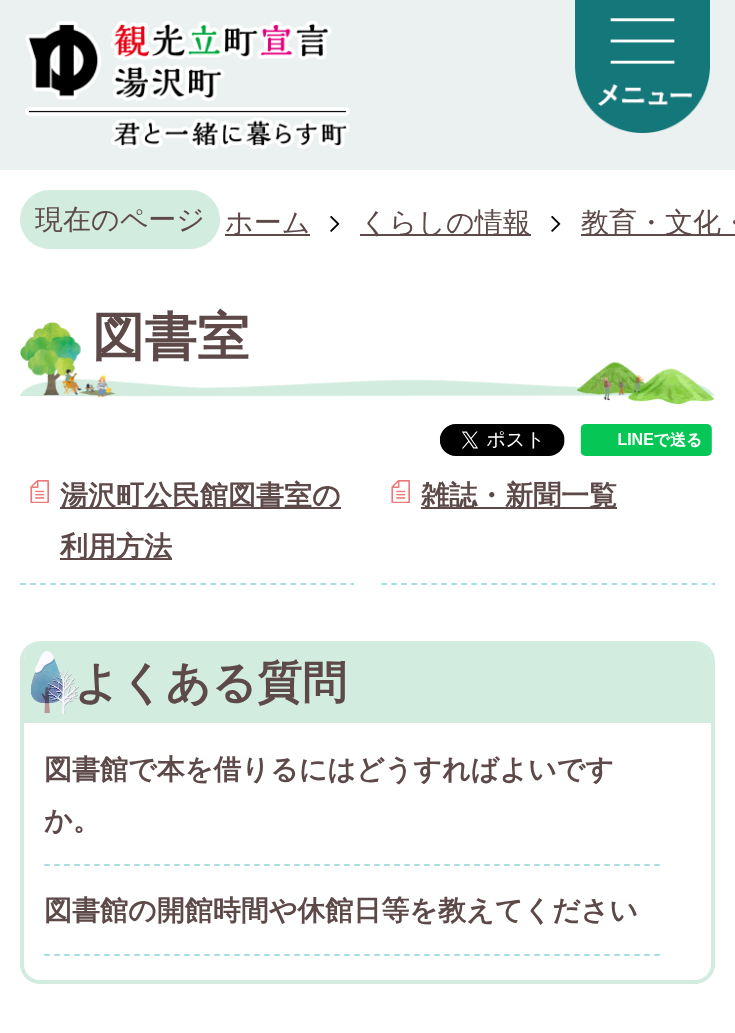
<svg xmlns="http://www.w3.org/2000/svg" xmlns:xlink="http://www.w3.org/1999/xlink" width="735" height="1033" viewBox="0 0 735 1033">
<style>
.cls-1{font:500 28px WenQuanYi Zen Hei;fill:#5c4948}
.cls-2{font:bold 52.5px WenQuanYi Zen Hei;fill:#5c4948}
.cls-3{font:bold 28px WenQuanYi Zen Hei;fill:#5c4948}
.cls-4{font:bold 44.75px WenQuanYi Zen Hei;fill:#5c4948}
</style>
<rect width="100%" height="100%" fill="#ffffff"/>
<rect fill="#eaf1f0" x="0" y="0" width="735" height="170"/>
<image xlink:href="image0.png" x="25" y="20" width="325" height="129"/>
<image xlink:href="image1.png" x="575" y="0" width="135" height="133"/>
<rect fill="#d2ecdf" x="20" y="190" width="200" height="59" rx="29.5"/>
<rect fill="#5c4948" x="225" y="234" width="85" height="2"/>
<image xlink:href="image2.png" x="330" y="215" width="10" height="17"/>
<rect fill="#5c4948" x="360" y="234" width="171" height="2"/>
<image xlink:href="image2.png" x="551" y="215" width="10" height="17"/>
<rect fill="#5c4948" x="581" y="234" width="154" height="2"/>
<image xlink:href="image3.png" x="20" y="322" width="695" height="82"/>
<image xlink:href="image4.png" x="439" y="424" width="126" height="32"/>
<image xlink:href="image5.png" x="580" y="424" width="132" height="32"/>
<image xlink:href="image6.png" x="30" y="480" width="19" height="23"/>
<rect fill="#5c4948" x="60" y="507" width="281" height="2"/>
<rect fill="#5c4948" x="60" y="558" width="112" height="2"/>
<image xlink:href="image7.png" x="20" y="583" width="334" height="2"/>
<image xlink:href="image6.png" x="391" y="480" width="19" height="23"/>
<rect fill="#5c4948" x="421" y="507" width="196" height="2"/>
<image xlink:href="image7.png" x="381" y="583" width="334" height="2"/>
<path fill="#d2ecdf" fill-rule="evenodd" d="M40 641H695C706 641 715 650 715 661V964C715 975 706 984 695 984H40C29 984 20 975 20 964V661C20 650 29 641 40 641ZM40 641H695C704 641 711 650 711 661V964C711 973 704 980 695 980H40C31 980 24 973 24 964V661C24 650 31 641 40 641Z"/>
<path fill="#d2ecdf" d="M40 641C31 641 24 650 24 661V723H711V661C711 650 704 641 695 641Z"/>
<image xlink:href="image8.png" x="31" y="651" width="48" height="63"/>
<image xlink:href="image9.png" x="44" y="864" width="616" height="2"/>
<image xlink:href="image9.png" x="44" y="954" width="616" height="2"/>
<text class="cls-1" x="35" y="229">現在のページ</text>
<text class="cls-1" x="225" y="232">ホーム</text>
<text class="cls-1" x="360" y="232">くらしの情報</text>
<text class="cls-1" x="581" y="232">教育・文化・</text>
<text class="cls-2" x="92" y="355">図書室</text>
<text class="cls-3"><tspan x="60" y="505">湯沢町公民館図書室の</tspan><tspan x="60" y="556">利用方法</tspan></text>
<text class="cls-3" x="421" y="505">雑誌・新聞一覧</text>
<text class="cls-4" x="74" y="698">よくある質問</text>
<text class="cls-3"><tspan x="44" y="779">図書館で本を借りるにはどうすればよいです</tspan><tspan x="44" y="830">か。</tspan></text>
<text class="cls-3" x="44" y="920">図書館の開館時間や休館日等を教えてください</text>
</svg>
